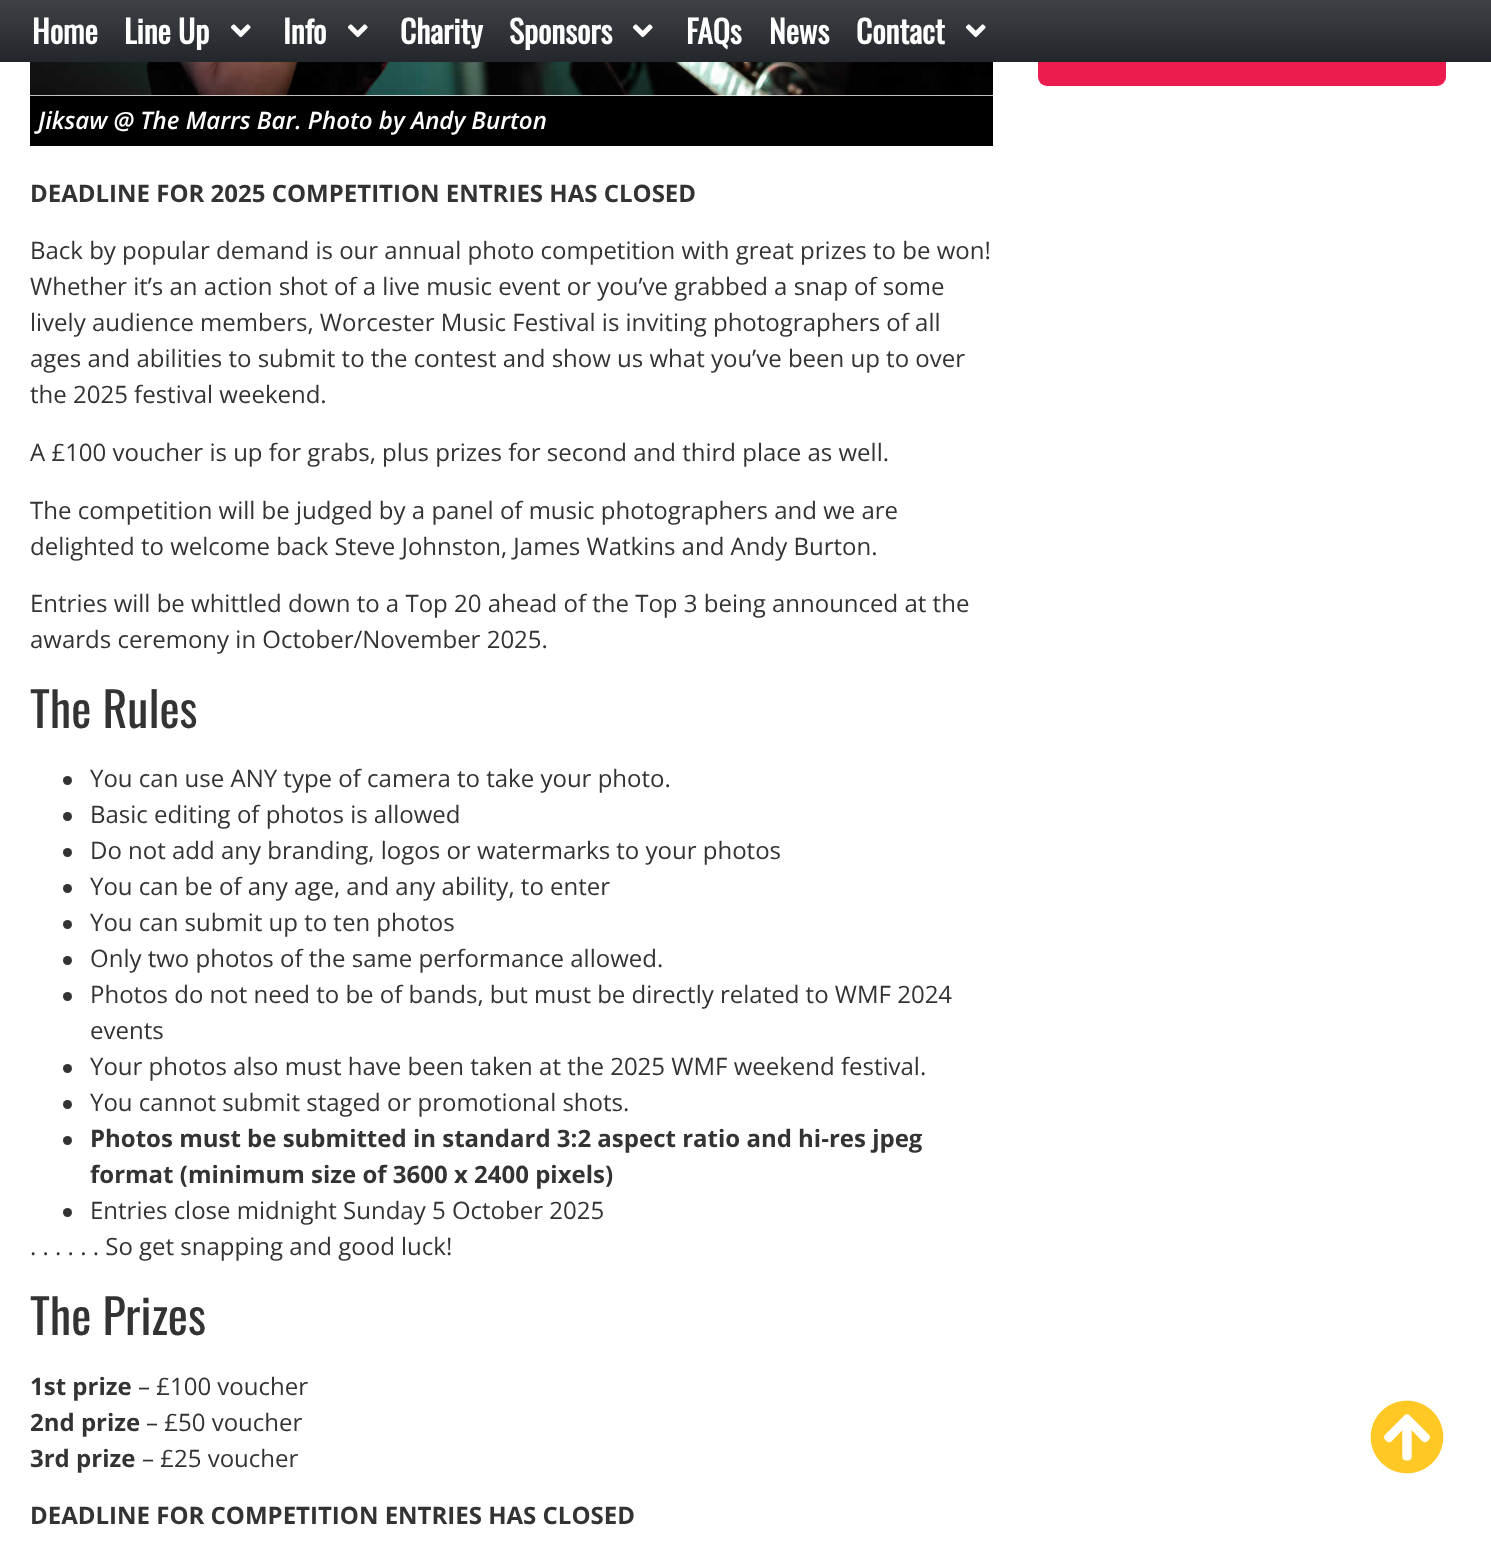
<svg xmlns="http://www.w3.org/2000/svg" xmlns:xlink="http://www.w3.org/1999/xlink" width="1491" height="1563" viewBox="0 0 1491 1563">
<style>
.cls-1{font:bold 31.5px Oswald;fill:#ffffff}
.cls-2{font:italic 600 24px Open Sans;fill:#ffffff}
.cls-3{font:bold 24px Open Sans;fill:#333333}
.cls-4{font:24px Open Sans;fill:#333333}
.cls-5{font:48px Oswald;fill:#333333}
</style>
<defs>
<linearGradient id="g1" gradientUnits="userSpaceOnUse" x1="746" y1="0" x2="746" y2="62"><stop offset="0" stop-color="#3e4246"/><stop offset="1" stop-color="#23272b"/></linearGradient>
</defs>
<rect width="100%" height="100%" fill="#ffffff"/>
<rect fill="#ec1c50" x="1038" y="-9" width="408" height="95" rx="9"/>
<rect fill="url(#g1)" x="0" y="0" width="1491" height="62"/>
<image xlink:href="image0.png" x="230" y="24" width="21" height="14"/>
<image xlink:href="image0.png" x="347" y="24" width="21" height="14"/>
<image xlink:href="image0.png" x="632" y="24" width="21" height="14"/>
<image xlink:href="image0.png" x="965" y="24" width="21" height="14"/>
<image xlink:href="image1.png" x="1370" y="1400" width="74" height="74"/>
<image xlink:href="image2.png" x="30" y="62" width="963" height="34"/>
<rect fill="#000000" x="30" y="96" width="963" height="50"/>
<circle fill="#333333" cx="67.5" cy="780.5" r="4.5"/>
<circle fill="#333333" cx="67.5" cy="816.5" r="4.5"/>
<circle fill="#333333" cx="67.5" cy="852.5" r="4.5"/>
<circle fill="#333333" cx="67.5" cy="888.5" r="4.5"/>
<circle fill="#333333" cx="67.5" cy="924.5" r="4.5"/>
<circle fill="#333333" cx="67.5" cy="960.5" r="4.5"/>
<circle fill="#333333" cx="67.5" cy="996.5" r="4.5"/>
<circle fill="#333333" cx="67.5" cy="1068.5" r="4.5"/>
<circle fill="#333333" cx="67.5" cy="1104.5" r="4.5"/>
<circle fill="#333333" cx="67.5" cy="1140.5" r="4.5"/>
<circle fill="#333333" cx="67.5" cy="1212.5" r="4.5"/>
<text class="cls-1" x="32" y="44">Home</text>
<text class="cls-1" x="124" y="44">Line Up</text>
<text class="cls-1" x="283" y="44">Info</text>
<text class="cls-1" x="400" y="44">Charity</text>
<text class="cls-1" x="509" y="44">Sponsors</text>
<text class="cls-1" x="686" y="44">FAQs</text>
<text class="cls-1" x="769" y="44">News</text>
<text class="cls-1" x="856" y="44">Contact</text>
<text class="cls-2" x="38" y="129">Jiksaw @ The Marrs Bar. Photo by Andy Burton</text>
<text class="cls-3" x="30" y="202">DEADLINE FOR 2025 COMPETITION ENTRIES HAS CLOSED</text>
<text class="cls-4"><tspan x="30" y="259">Back by popular demand is our annual photo competition with great prizes to be won!</tspan><tspan x="30" y="295">Whether it’s an action shot of a live music event or you’ve grabbed a snap of some</tspan><tspan x="30" y="331">lively audience members, Worcester Music Festival is inviting photographers of all</tspan><tspan x="30" y="367">ages and abilities to submit to the contest and show us what you’ve been up to over</tspan><tspan x="30" y="403">the 2025 festival weekend.</tspan></text>
<text class="cls-4" x="30" y="461">A £100 voucher is up for grabs, plus prizes for second and third place as well.</text>
<text class="cls-4"><tspan x="30" y="519">The competition will be judged by a panel of music photographers and we are</tspan><tspan x="30" y="555">delighted to welcome back Steve Johnston, James Watkins and Andy Burton.</tspan></text>
<text class="cls-4"><tspan x="30" y="612">Entries will be whittled down to a Top 20 ahead of the Top 3 being announced at the</tspan><tspan x="30" y="648">awards ceremony in October/November 2025.</tspan></text>
<text class="cls-5" x="30" y="728">The Rules</text>
<text class="cls-4"><tspan x="90" y="787">You can use ANY type of camera to take your photo.</tspan><tspan x="90" y="823">Basic editing of photos is allowed</tspan><tspan x="90" y="859">Do not add any branding, logos or watermarks to your photos</tspan><tspan x="90" y="895">You can be of any age, and any ability, to enter</tspan><tspan x="90" y="931">You can submit up to ten photos</tspan><tspan x="90" y="967">Only two photos of the same performance allowed.</tspan><tspan x="90" y="1003">Photos do not need to be of bands, but must be directly related to WMF 2024</tspan><tspan x="90" y="1039">events</tspan><tspan x="90" y="1075">Your photos also must have been taken at the 2025 WMF weekend festival.</tspan><tspan x="90" y="1111">You cannot submit staged or promotional shots.</tspan></text>
<text class="cls-3"><tspan x="90" y="1147">Photos must be submitted in standard 3:2 aspect ratio and hi-res jpeg</tspan><tspan x="90" y="1183">format (minimum size of 3600 x 2400 pixels)</tspan></text>
<text class="cls-4" x="90" y="1219">Entries close midnight Sunday 5 October 2025</text>
<text class="cls-4" x="30" y="1255">. . . . . . So get snapping and good luck!</text>
<text class="cls-5" x="30" y="1335">The Prizes</text>
<text class="cls-3" x="30" y="1395">1st prize</text>
<text class="cls-4" x="138" y="1395">– £100 voucher</text>
<text class="cls-3" x="30" y="1431">2nd prize</text>
<text class="cls-4" x="146" y="1431">– £50 voucher</text>
<text class="cls-3" x="30" y="1467">3rd prize</text>
<text class="cls-4" x="142" y="1467">– £25 voucher</text>
<text class="cls-3" x="30" y="1524">DEADLINE FOR COMPETITION ENTRIES HAS CLOSED</text>
</svg>
